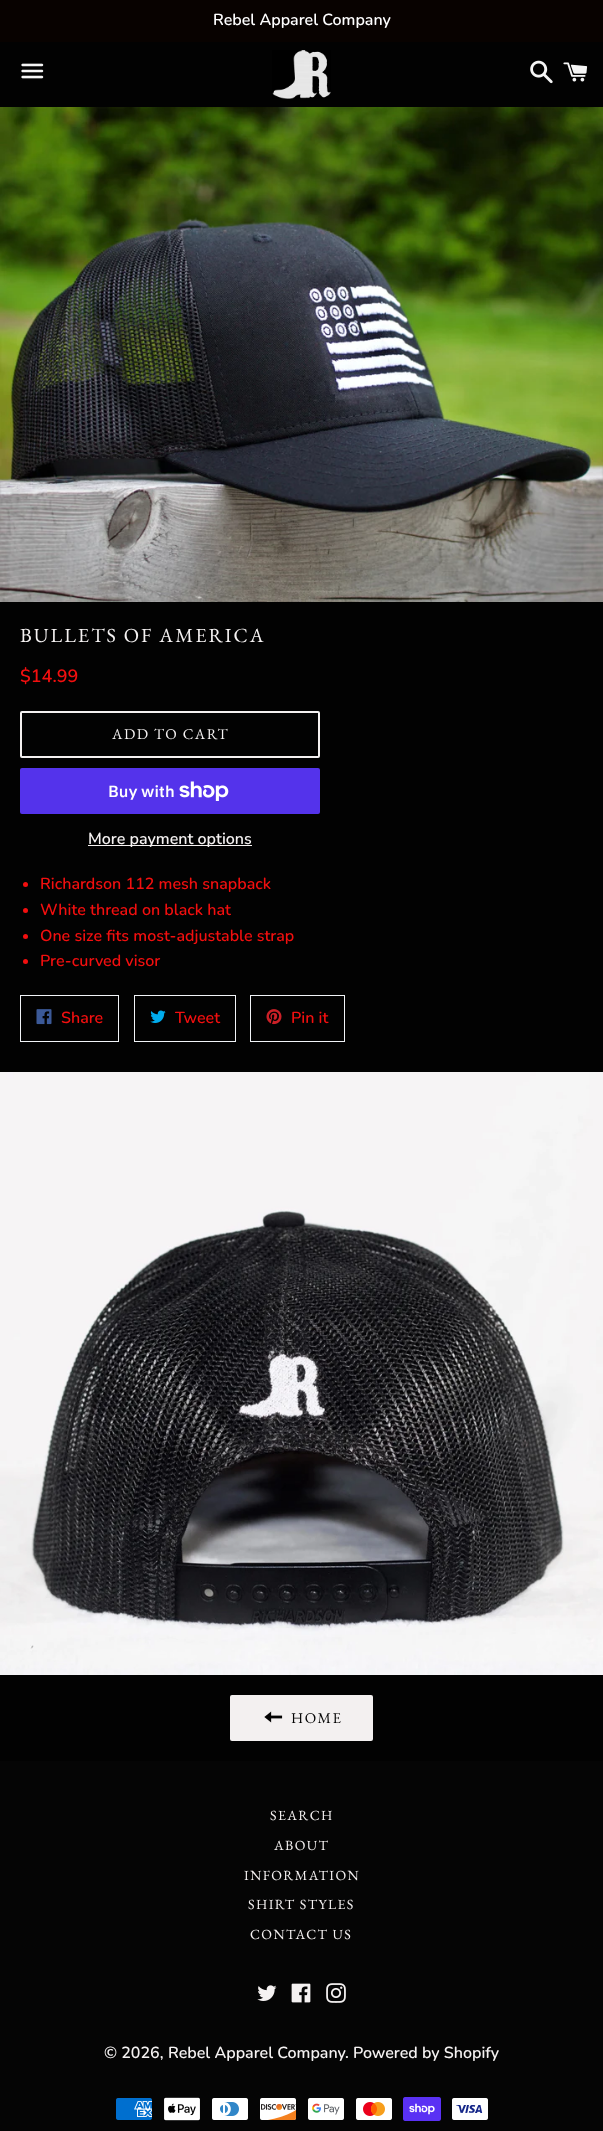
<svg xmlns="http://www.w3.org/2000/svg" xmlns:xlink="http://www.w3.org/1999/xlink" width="603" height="2131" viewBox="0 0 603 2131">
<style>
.cls-1{font:600 16px Nunito;fill:#ffffff}
.cls-2{font:20px EB Garamond;letter-spacing:2px;fill:#f5f2f2}
.cls-3{font:600 18px Nunito;fill:#f20f0f}
.cls-4{font:15px EB Garamond;letter-spacing:1.5px;fill:#f5f2f2}
.cls-5{font:600 16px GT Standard;fill:#ffffff}
.cls-6{font:600 16px Nunito;fill:#f5f2f2}
.cls-7{font:600 16px Nunito;fill:#f20f0f}
.cls-8{font:15px EB Garamond;letter-spacing:1.5px;fill:#030303}
.cls-9{font:14px EB Garamond;letter-spacing:1.4px;fill:#f5f2f2}
</style>
<rect width="100%" height="100%" fill="#020202"/>
<rect fill="#080200" x="0" y="0" width="603" height="42"/>
<image xlink:href="image0.png" x="21" y="63" width="23" height="16"/>
<image xlink:href="image1.png" x="272" y="50" width="59" height="49"/>
<image xlink:href="image2.png" x="530" y="60" width="23" height="24"/>
<image xlink:href="image3.png" x="563" y="62" width="25" height="20"/>
<image xlink:href="image4.png" x="0" y="107" width="603" height="495"/>
<rect fill="none" stroke="#f3f0f0" stroke-width="2" x="21" y="712" width="298" height="45" rx="1"/>
<rect fill="#5433eb" x="20" y="768" width="300" height="46" rx="2"/>
<image xlink:href="image5.png" x="179" y="781" width="50" height="20"/>
<rect fill="#f7f3f2" x="88" y="845" width="164" height="1"/>
<circle fill="#f20f0f" cx="25.5" cy="884.5" r="2.5"/>
<circle fill="#f20f0f" cx="25.5" cy="910.5" r="2.5"/>
<circle fill="#f20f0f" cx="25.5" cy="936.5" r="2.5"/>
<circle fill="#f20f0f" cx="25.5" cy="961.5" r="2.5"/>
<rect fill="none" stroke="#f1f4f7" x="20.5" y="995.5" width="98" height="46"/>
<image xlink:href="image6.png" x="36" y="1009" width="16" height="16"/>
<rect fill="none" stroke="#f1f4f7" x="134.5" y="995.5" width="101" height="46"/>
<image xlink:href="image7.png" x="150" y="1010" width="16" height="13"/>
<rect fill="none" stroke="#f1f4f7" x="250.5" y="995.5" width="94" height="46"/>
<image xlink:href="image8.png" x="266" y="1009" width="16" height="16"/>
<image xlink:href="image9.png" x="0" y="1072" width="603" height="603"/>
<rect fill="#f3f0f0" x="230" y="1695" width="143" height="46" rx="2"/>
<image xlink:href="image10.png" x="264" y="1711" width="19" height="12"/>
<rect fill="#050505" x="0" y="1761" width="603" height="370"/>
<image xlink:href="image11.png" x="257" y="1985" width="20" height="16"/>
<image xlink:href="image12.png" x="291" y="1983" width="20" height="20"/>
<image xlink:href="image13.png" x="326" y="1983" width="20" height="20"/>
<image xlink:href="image14.png" x="116" y="2098" width="36" height="22"/>
<image xlink:href="image15.png" x="164" y="2097" width="36" height="24"/>
<image xlink:href="image16.png" x="212" y="2098" width="36" height="22"/>
<image xlink:href="image17.png" x="260" y="2098" width="37" height="22"/>
<image xlink:href="image18.png" x="308" y="2098" width="36" height="22"/>
<image xlink:href="image19.png" x="356" y="2098" width="36" height="22"/>
<image xlink:href="image20.png" x="403" y="2097" width="38" height="24"/>
<image xlink:href="image21.png" x="452" y="2098" width="36" height="22"/>
<text class="cls-1" x="213" y="25">Rebel Apparel Company</text>
<text class="cls-2" x="20" y="642">BULLETS OF AMERICA</text>
<text class="cls-3" x="20" y="682">$14.99</text>
<text class="cls-4" x="112" y="739">ADD TO CART</text>
<text class="cls-5" x="108" y="797">Buy with</text>
<text class="cls-6" x="88" y="844">More payment options</text>
<text class="cls-7"><tspan x="40" y="889">Richardson 112 mesh snapback</tspan><tspan x="40" y="915">White thread on black hat</tspan><tspan x="40" y="941">One size fits most-adjustable strap</tspan><tspan x="40" y="966">Pre-curved visor</tspan></text>
<text class="cls-7" x="61" y="1023">Share</text>
<text class="cls-7" x="175" y="1023">Tweet</text>
<text class="cls-7" x="291" y="1023">Pin it</text>
<text class="cls-8" x="291" y="1723">HOME</text>
<text class="cls-9" x="270" y="1820">SEARCH</text>
<text class="cls-9" x="274" y="1850">ABOUT</text>
<text class="cls-9" x="244" y="1880">INFORMATION</text>
<text class="cls-9" x="248" y="1909">SHIRT STYLES</text>
<text class="cls-9" x="250" y="1939">CONTACT US</text>
<text class="cls-6" x="104" y="2058">© 2026,</text>
<text class="cls-6" x="168" y="2058">Rebel Apparel Company</text>
<text class="cls-6" x="345" y="2058">. Powered by Shopify</text>
</svg>
